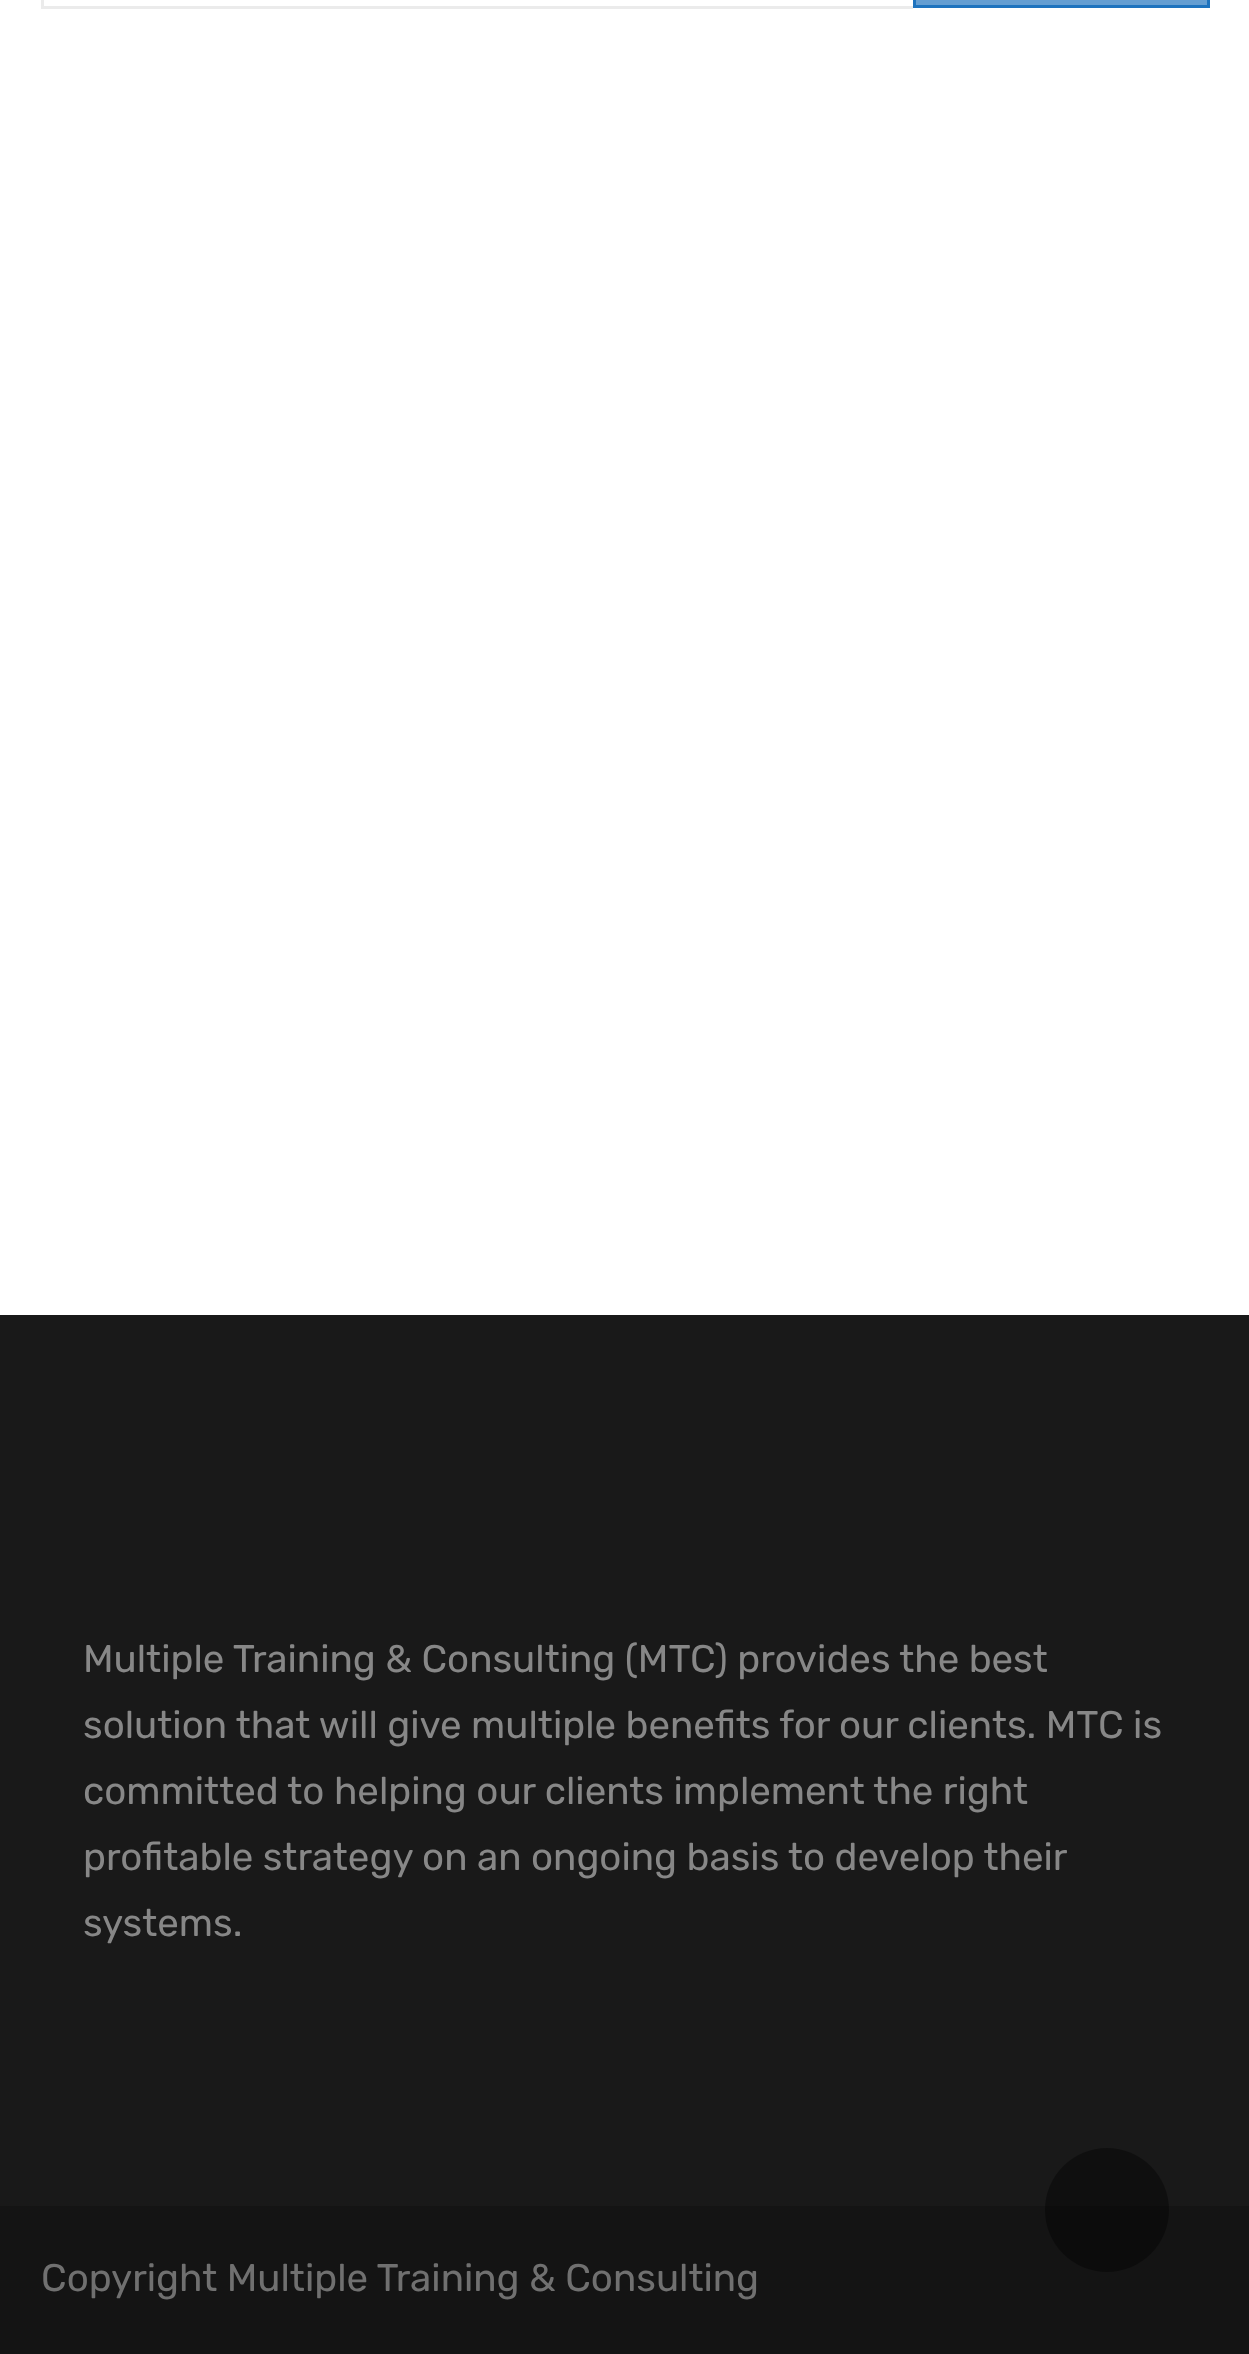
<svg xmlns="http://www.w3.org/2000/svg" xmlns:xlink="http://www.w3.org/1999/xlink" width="1249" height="2354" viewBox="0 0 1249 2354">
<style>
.cls-1{font:38.5px Rubik;fill:#878787}
.cls-2{font:38.5px Rubik;fill:#707070}
</style>
<rect width="100%" height="100%" fill="#ffffff"/>
<rect fill="#ebebeb" x="41" y="6" width="872" height="3"/>
<rect fill="#ebebeb" x="41" y="0" width="3" height="8"/>
<rect fill="#649ed2" stroke="#1e73be" stroke-width="3" x="914.5" y="-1.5" width="294" height="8"/>
<rect fill="#191919" x="0" y="1315" width="1249" height="891"/>
<rect fill="#141414" x="0" y="2206" width="1249" height="148"/>
<circle fill="#000000" fill-opacity="0.38" cx="1107" cy="2210" r="62"/>
<text class="cls-1"><tspan x="83" y="1672">Multiple Training &amp; Consulting (MTC) provides the best</tspan><tspan x="83" y="1738">solution that will give multiple benefits for our clients. MTC is</tspan><tspan x="83" y="1804">committed to helping our clients implement the right</tspan><tspan x="83" y="1870">profitable strategy on an ongoing basis to develop their</tspan><tspan x="83" y="1936">systems.</tspan></text>
<text class="cls-2" x="41" y="2291">Copyright Multiple Training &amp; Consulting</text>
</svg>
